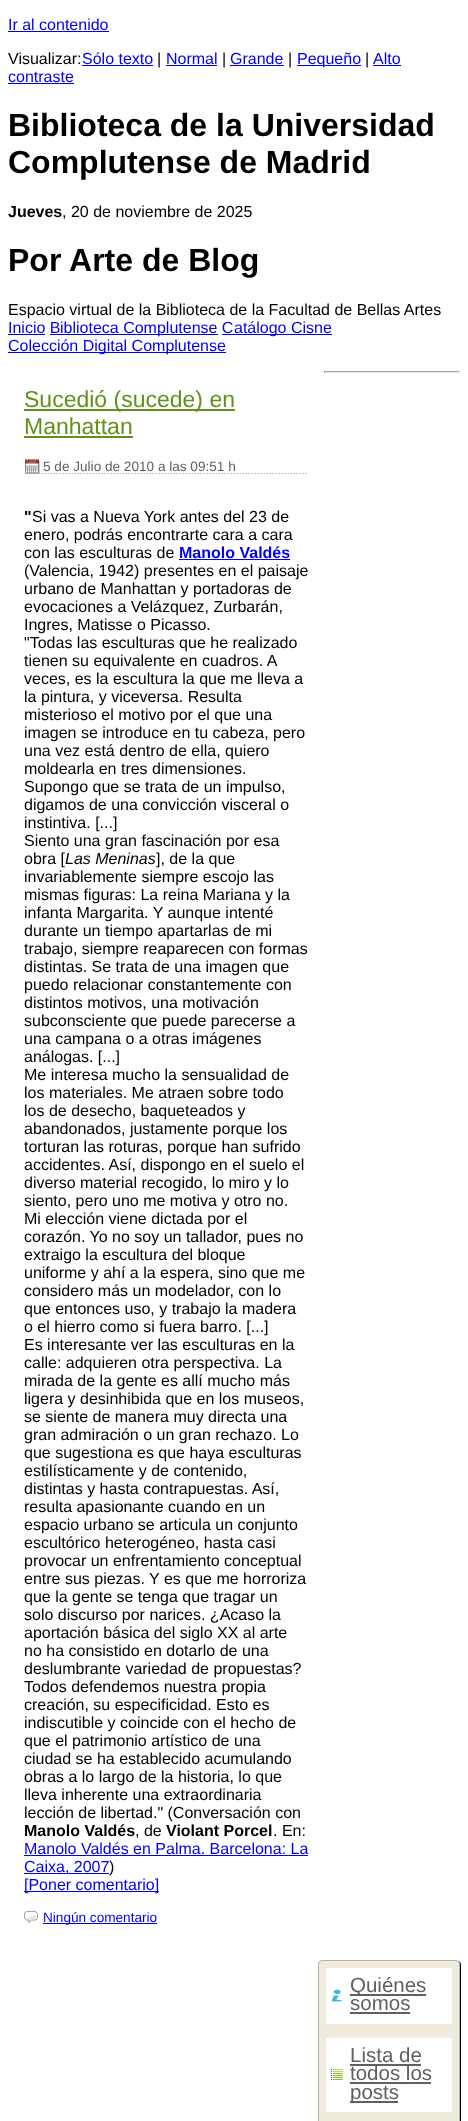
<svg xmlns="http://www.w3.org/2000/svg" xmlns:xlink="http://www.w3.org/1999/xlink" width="468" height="2121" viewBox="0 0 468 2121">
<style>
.cls-1{font:16px Liberation Sans;fill:#0000ee}
.cls-2{font:16px Liberation Sans;fill:#000000}
.cls-3{font:bold 32px Liberation Sans;fill:#000000}
.cls-4{font:bold 16px Liberation Sans;fill:#000000}
.cls-5{font:23px Liberation Sans;fill:#63901b}
.cls-6{font:13.6px Liberation Sans;fill:#606060}
.cls-7{font:bold 16px Liberation Sans;fill:#0000ee}
.cls-8{font:italic 16px Liberation Sans;fill:#000000}
.cls-9{font:13.6px Liberation Sans;fill:#0000ee}
.cls-10{font:20.5px Liberation Sans;fill:#606060}
</style>
<rect width="100%" height="100%" fill="#ffffff"/>
<rect fill="#0000ee" x="8" y="31" width="101" height="1"/>
<rect fill="#0000ee" x="82" y="65" width="71" height="1"/>
<rect fill="#0000ee" x="166" y="65" width="51" height="1"/>
<rect fill="#0000ee" x="230" y="65" width="54" height="1"/>
<rect fill="#0000ee" x="297" y="65" width="64" height="1"/>
<rect fill="#0000ee" x="373" y="65" width="28" height="1"/>
<rect fill="#0000ee" x="8" y="83" width="66" height="1"/>
<rect fill="#0000ee" x="8" y="334" width="37" height="1"/>
<rect fill="#0000ee" x="50" y="334" width="168" height="1"/>
<rect fill="#0000ee" x="222" y="334" width="110" height="1"/>
<rect fill="#0000ee" x="8" y="352" width="218" height="1"/>
<rect fill="#9f9f9f" x="324" y="371" width="136" height="1"/>
<rect fill="#eeeeee" x="459" y="371" width="1" height="2"/>
<rect fill="#eeeeee" x="324" y="372" width="136" height="1"/>
<rect fill="#9f9f9f" x="324" y="371" width="1" height="2"/>
<rect fill="#63901b" x="24" y="409" width="211" height="2"/>
<rect fill="#63901b" x="24" y="436" width="109" height="2"/>
<image xlink:href="image0.png" x="40" y="473" width="267" height="1"/>
<image xlink:href="image1.png" x="24" y="459" width="16" height="15"/>
<rect fill="#0000ee" x="179" y="559" width="111" height="1"/>
<rect fill="#0000ee" x="24" y="1855" width="284" height="1"/>
<rect fill="#0000ee" x="24" y="1873" width="85" height="1"/>
<rect fill="#0000ee" x="24" y="1891" width="135" height="1"/>
<image xlink:href="image2.png" x="24" y="1911" width="14" height="12"/>
<rect fill="#0000ee" x="43" y="1923" width="114" height="1"/>
<rect fill="#000000" filter="blur(0.5px)" x="319" y="1961" width="142" height="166" rx="4"/>
<rect fill="#efecdd" stroke="#b3b1a6" x="318.5" y="1960.5" width="141" height="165" rx="3.5"/>
<rect fill="#ffffff" x="326" y="1968" width="126" height="56"/>
<image xlink:href="image3.png" x="331" y="1989" width="11" height="13"/>
<rect fill="#606060" x="350" y="1994" width="76" height="2"/>
<rect fill="#606060" x="350" y="2012" width="60" height="2"/>
<rect fill="#ffffff" x="326" y="2038" width="126" height="74"/>
<image xlink:href="image4.png" x="331" y="2069" width="12" height="11"/>
<rect fill="#606060" x="350" y="2064" width="71" height="2"/>
<rect fill="#606060" x="350" y="2082" width="81" height="2"/>
<rect fill="#606060" x="350" y="2101" width="48" height="2"/>
<text class="cls-1" x="8" y="30">Ir al contenido</text>
<text class="cls-2" x="8" y="64">Visualizar:</text>
<text class="cls-1" x="82" y="64">Sólo texto</text>
<text class="cls-2" x="157" y="64">|</text>
<text class="cls-1" x="166" y="64">Normal</text>
<text class="cls-2" x="222" y="64">|</text>
<text class="cls-1" x="230" y="64">Grande</text>
<text class="cls-2" x="288" y="64">|</text>
<text class="cls-1" x="297" y="64">Pequeño</text>
<text class="cls-2" x="365" y="64">|</text>
<text class="cls-1" x="373" y="64">Alto</text>
<text class="cls-1" x="8" y="82">contraste</text>
<text class="cls-3"><tspan x="8" y="136">Biblioteca de la Universidad</tspan><tspan x="8" y="173">Complutense de Madrid</tspan></text>
<text class="cls-4" x="8" y="217">Jueves</text>
<text class="cls-2" x="62" y="217">, 20 de noviembre de 2025</text>
<text class="cls-3" x="8" y="271">Por Arte de Blog</text>
<text class="cls-2" x="8" y="315">Espacio virtual de la Biblioteca de la Facultad de Bellas Artes</text>
<text class="cls-1" x="8" y="333">Inicio B</text>
<text class="cls-1" x="60" y="333">iblioteca Complutense C</text>
<text class="cls-1" x="234" y="333">atálogo Cisne</text>
<text class="cls-1" x="8" y="351">Colección Digital Complutense</text>
<text class="cls-5"><tspan x="24" y="407">Sucedió (sucede) en</tspan><tspan x="24" y="434">Manhattan</tspan></text>
<text class="cls-6" x="43" y="471">5 de Julio de 2010 a las 09:51 h</text>
<text class="cls-4" x="24" y="522">"</text>
<text class="cls-2" x="32" y="522">Si vas a Nueva York antes del 23 de</text>
<text class="cls-2"><tspan x="24" y="540">enero, podrás encontrarte cara a cara</tspan><tspan x="24" y="558">con las esculturas de</tspan></text>
<text class="cls-7" x="179" y="558">Manolo Valdés</text>
<text class="cls-2"><tspan x="24" y="576">(Valencia, 1942) presentes en el paisaje</tspan><tspan x="24" y="594">urbano de Manhattan y portadoras de</tspan><tspan x="24" y="612">evocaciones a Velázquez, Zurbarán,</tspan><tspan x="24" y="630">Ingres, Matisse o Picasso.</tspan><tspan x="24" y="648">"Todas las esculturas que he realizado</tspan><tspan x="24" y="666">tienen su equivalente en cuadros. A</tspan><tspan x="24" y="684">veces, es la escultura la que me lleva a</tspan><tspan x="24" y="702">la pintura, y viceversa. Resulta</tspan><tspan x="24" y="720">misterioso el motivo por el que una</tspan><tspan x="24" y="738">imagen se introduce en tu cabeza, pero</tspan><tspan x="24" y="756">una vez está dentro de ella, quiero</tspan><tspan x="24" y="774">moldearla en tres dimensiones.</tspan><tspan x="24" y="792">Supongo que se trata de un impulso,</tspan><tspan x="24" y="810">digamos de una convicción visceral o</tspan><tspan x="24" y="828">instintiva. [...]</tspan><tspan x="24" y="846">Siento una gran fascinación por esa</tspan><tspan x="24" y="864">obra [</tspan></text>
<text class="cls-8" x="65" y="864">Las Meninas</text>
<text class="cls-2" x="156" y="864">], de la que</text>
<text class="cls-2"><tspan x="24" y="882">invariablemente siempre escojo las</tspan><tspan x="24" y="900">mismas figuras: La reina Mariana y la</tspan><tspan x="24" y="918">infanta Margarita. Y aunque intenté</tspan><tspan x="24" y="936">durante un tiempo apartarlas de mi</tspan><tspan x="24" y="954">trabajo, siempre reaparecen con formas</tspan><tspan x="24" y="972">distintas. Se trata de una imagen que</tspan><tspan x="24" y="990">puedo relacionar constantemente con</tspan><tspan x="24" y="1008">distintos motivos, una motivación</tspan><tspan x="24" y="1026">subconsciente que puede parecerse a</tspan><tspan x="24" y="1044">una campana o a otras imágenes</tspan><tspan x="24" y="1062">análogas. [...]</tspan><tspan x="24" y="1080">Me interesa mucho la sensualidad de</tspan><tspan x="24" y="1098">los materiales. Me atraen sobre todo</tspan><tspan x="24" y="1116">los de desecho, baqueteados y</tspan><tspan x="24" y="1134">abandonados, justamente porque los</tspan><tspan x="24" y="1152">torturan las roturas, porque han sufrido</tspan><tspan x="24" y="1170">accidentes. Así, dispongo en el suelo el</tspan><tspan x="24" y="1188">diverso material recogido, lo miro y lo</tspan><tspan x="24" y="1206">siento, pero uno me motiva y otro no.</tspan><tspan x="24" y="1224">Mi elección viene dictada por el</tspan><tspan x="24" y="1242">corazón. Yo no soy un tallador, pues no</tspan><tspan x="24" y="1260">extraigo la escultura del bloque</tspan><tspan x="24" y="1278">uniforme y ahí a la espera, sino que me</tspan><tspan x="24" y="1296">considero más un modelador, con lo</tspan><tspan x="24" y="1314">que entonces uso, y trabajo la madera</tspan><tspan x="24" y="1332">o el hierro como si fuera barro. [...]</tspan><tspan x="24" y="1350">Es interesante ver las esculturas en la</tspan><tspan x="24" y="1368">calle: adquieren otra perspectiva. La</tspan><tspan x="24" y="1386">mirada de la gente es allí mucho más</tspan><tspan x="24" y="1404">ligera y desinhibida que en los museos,</tspan><tspan x="24" y="1422">se siente de manera muy directa una</tspan><tspan x="24" y="1440">gran admiración o un gran rechazo. Lo</tspan><tspan x="24" y="1458">que sugestiona es que haya esculturas</tspan><tspan x="24" y="1476">estilísticamente y de contenido,</tspan><tspan x="24" y="1494">distintas y hasta contrapuestas. Así,</tspan><tspan x="24" y="1512">resulta apasionante cuando en un</tspan><tspan x="24" y="1530">espacio urbano se articula un conjunto</tspan><tspan x="24" y="1548">escultórico heterogéneo, hasta casi</tspan><tspan x="24" y="1566">provocar un enfrentamiento conceptual</tspan><tspan x="24" y="1584">entre sus piezas. Y es que me horroriza</tspan><tspan x="24" y="1602">que la gente se tenga que tragar un</tspan><tspan x="24" y="1620">solo discurso por narices. ¿Acaso la</tspan><tspan x="24" y="1638">aportación básica del siglo XX al arte</tspan><tspan x="24" y="1656">no ha consistido en dotarlo de una</tspan><tspan x="24" y="1674">deslumbrante variedad de propuestas?</tspan><tspan x="24" y="1692">Todos defendemos nuestra propia</tspan><tspan x="24" y="1710">creación, su especificidad. Esto es</tspan><tspan x="24" y="1728">indiscutible y coincide con el hecho de</tspan><tspan x="24" y="1746">que el patrimonio artístico de una</tspan><tspan x="24" y="1764">ciudad se ha establecido acumulando</tspan><tspan x="24" y="1782">obras a lo largo de la historia, lo que</tspan><tspan x="24" y="1800">lleva inherente una extraordinaria</tspan><tspan x="24" y="1818">lección de libertad." (Conversación con</tspan></text>
<text class="cls-4" x="24" y="1836">Manolo Valdés</text>
<text class="cls-2" x="135" y="1836">, de</text>
<text class="cls-4" x="166" y="1836">Violant Porcel</text>
<text class="cls-2" x="273" y="1836">. En:</text>
<text class="cls-1"><tspan x="24" y="1854">Manolo Valdés en Palma. Barcelona: La</tspan><tspan x="24" y="1872">Caixa, 2007</tspan></text>
<text class="cls-2" x="109" y="1872">)</text>
<text class="cls-1" x="24" y="1890">[Poner comentario]</text>
<text class="cls-9" x="43" y="1922">Ningún comentario</text>
<text class="cls-10"><tspan x="350" y="1992">Quiénes</tspan><tspan x="350" y="2010">somos</tspan></text>
<text class="cls-10"><tspan x="350" y="2062">Lista de</tspan><tspan x="350" y="2080">todos los</tspan><tspan x="350" y="2099">posts</tspan></text>
</svg>
